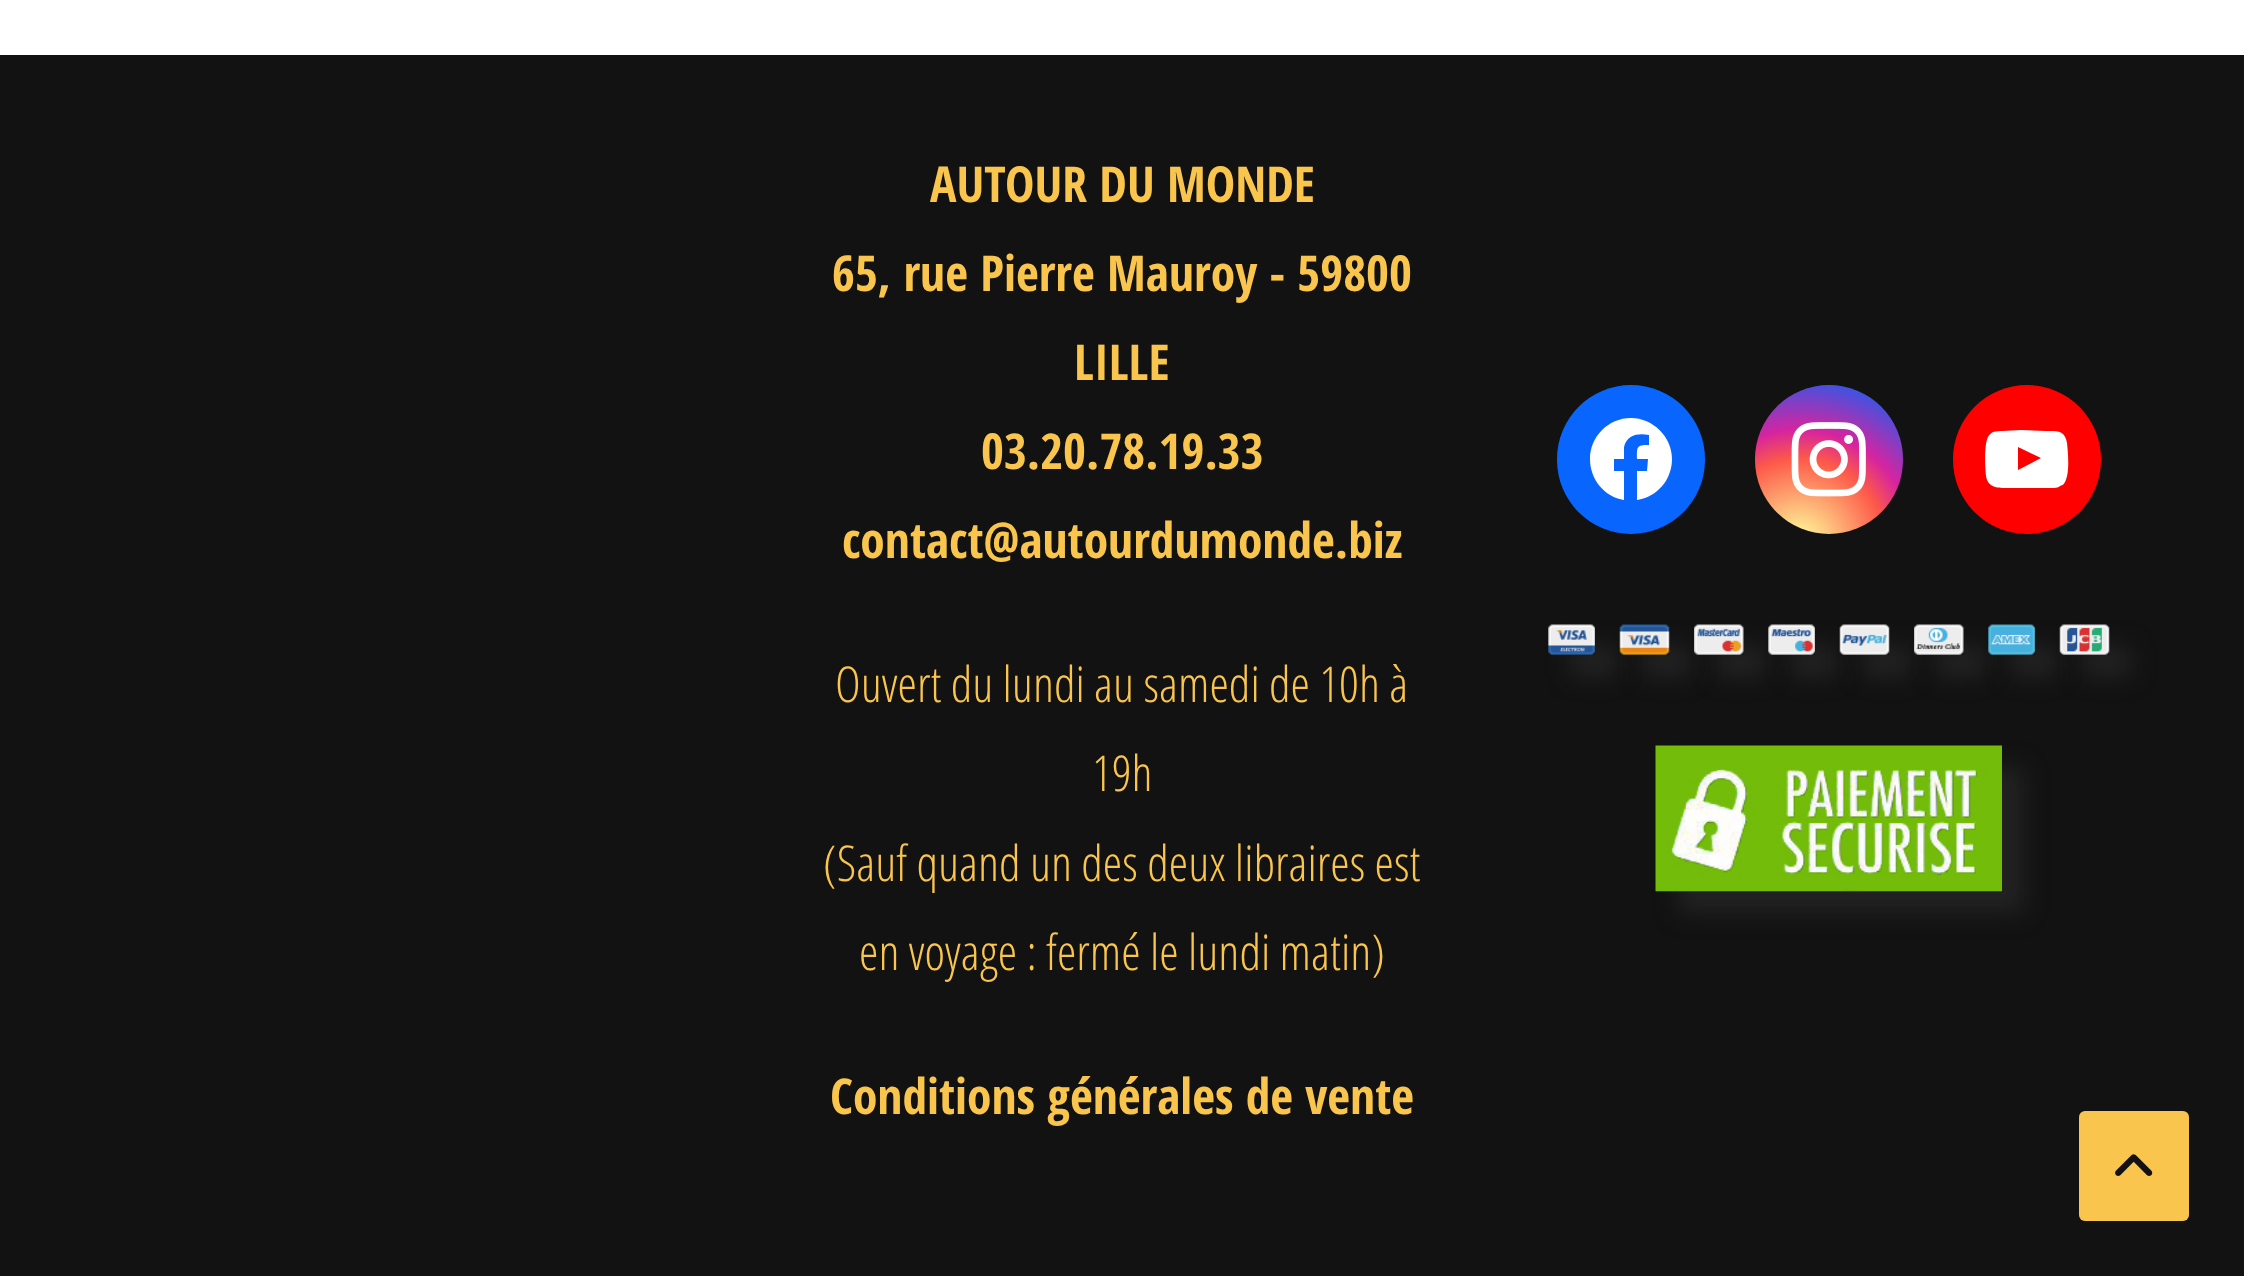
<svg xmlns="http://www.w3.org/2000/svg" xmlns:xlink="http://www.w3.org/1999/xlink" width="2244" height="1276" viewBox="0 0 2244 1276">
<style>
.cls-1{font:bold 49.5px Open Sans Condensed;fill:#fac54d}
.cls-2{font:300 49.5px Open Sans Condensed;fill:#fac54d}
</style>
<defs>
<radialGradient id="g1" gradientUnits="userSpaceOnUse" cx="1799" cy="544" r="190"><stop offset="0" stop-color="#fdf497"/><stop offset="0.05" stop-color="#fdf497"/><stop offset="0.45" stop-color="#fd5949"/><stop offset="0.6" stop-color="#d6249f"/><stop offset="0.9" stop-color="#285aeb"/></radialGradient>
<clipPath id="clip1"><path d="M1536 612H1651V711H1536ZM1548 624H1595V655H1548Z" clip-rule="evenodd"/></clipPath>
<clipPath id="clip2"><path d="M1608 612H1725V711H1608ZM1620 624H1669V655H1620Z" clip-rule="evenodd"/></clipPath>
<clipPath id="clip3"><path d="M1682 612H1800V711H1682ZM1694 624H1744V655H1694Z" clip-rule="evenodd"/></clipPath>
<clipPath id="clip4"><path d="M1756 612H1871V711H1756ZM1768 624H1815V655H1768Z" clip-rule="evenodd"/></clipPath>
<clipPath id="clip5"><path d="M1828 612H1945V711H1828ZM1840 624H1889V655H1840Z" clip-rule="evenodd"/></clipPath>
<clipPath id="clip6"><path d="M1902 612H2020V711H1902ZM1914 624H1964V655H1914Z" clip-rule="evenodd"/></clipPath>
<clipPath id="clip7"><path d="M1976 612H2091V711H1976ZM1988 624H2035V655H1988Z" clip-rule="evenodd"/></clipPath>
<clipPath id="clip8"><path d="M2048 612H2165V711H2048ZM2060 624H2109V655H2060Z" clip-rule="evenodd"/></clipPath>
</defs>
<rect width="100%" height="100%" fill="#121212"/>
<rect fill="#ffffff" x="0" y="0" width="2244" height="55"/>
<rect fill="#0866ff" x="1557" y="385" width="148" height="149" rx="74"/>
<path fill="#ffffff" d="M1631 418C1608 418 1590 437 1590 459C1590 480 1605 497 1624 500V471H1614V459H1624V447C1627 434 1639 433 1649 435V445C1636 445 1637 447 1637 459H1648L1647 471H1637V500C1657 497 1672 480 1672 459C1672 437 1653 418 1631 418Z"/>
<rect fill="url(#g1)" x="1755" y="385" width="148" height="149" rx="74"/>
<image xlink:href="image0.png" x="1791" y="422" width="75" height="75"/>
<rect fill="#ff0000" x="1953" y="385" width="148" height="149" rx="74"/>
<path fill="#ffffff" d="M2067 443C2065 430 2057 431 2046 431L2021 430L2002 431C2000 431 1996 431 1993 432C1991 433 1989 435 1988 437C1984 445 1985 467 1986 476C1988 489 2000 488 2010 488H2033H2051C2054 488 2058 488 2060 486C2063 485 2064 484 2065 482C2070 473 2068 452 2067 443ZM2018 470V447L2041 458Z"/>
<g clip-path="url(#clip1)">
<rect fill="#222222" filter="blur(11px)" x="1570" y="646" width="47" height="31"/>
</g>
<image xlink:href="image1.png" x="1548" y="624" width="47" height="31"/>
<g clip-path="url(#clip2)">
<rect fill="#222222" filter="blur(11px)" x="1642" y="646" width="49" height="31"/>
</g>
<image xlink:href="image2.png" x="1619" y="624" width="51" height="31"/>
<g clip-path="url(#clip3)">
<rect fill="#222222" filter="blur(11px)" x="1716" y="646" width="50" height="31"/>
</g>
<image xlink:href="image3.png" x="1694" y="624" width="50" height="31"/>
<g clip-path="url(#clip4)">
<rect fill="#222222" filter="blur(11px)" x="1790" y="646" width="47" height="31"/>
</g>
<image xlink:href="image4.png" x="1768" y="624" width="47" height="31"/>
<g clip-path="url(#clip5)">
<rect fill="#222222" filter="blur(11px)" x="1862" y="646" width="49" height="31"/>
</g>
<image xlink:href="image5.png" x="1839" y="624" width="51" height="31"/>
<g clip-path="url(#clip6)">
<rect fill="#222222" filter="blur(11px)" x="1936" y="646" width="50" height="31"/>
</g>
<image xlink:href="image6.png" x="1914" y="624" width="50" height="31"/>
<g clip-path="url(#clip7)">
<rect fill="#222222" filter="blur(11px)" x="2010" y="646" width="47" height="31"/>
</g>
<image xlink:href="image7.png" x="1988" y="624" width="47" height="31"/>
<g clip-path="url(#clip8)">
<rect fill="#222222" filter="blur(11px)" x="2082" y="646" width="49" height="31"/>
</g>
<image xlink:href="image8.png" x="2059" y="624" width="51" height="31"/>
<rect fill="#222222" filter="blur(11px)" x="1678" y="767" width="346" height="146"/>
<image xlink:href="image9.png" x="1655" y="745" width="347" height="147"/>
<rect fill="#fac54d" x="2079" y="1111" width="110" height="110" rx="6"/>
<image xlink:href="image10.png" x="2115" y="1154" width="38" height="22"/>
<text class="cls-1" x="930" y="202">AUTOUR DU MONDE</text>
<text class="cls-1" x="832" y="291">65, rue Pierre Mauroy - 59800</text>
<text class="cls-1" x="1074" y="380">LILLE</text>
<text class="cls-1" x="981" y="469">03.20.78.19.33</text>
<text class="cls-1" x="842" y="558">contact@autourdumonde.biz</text>
<text class="cls-2" x="835" y="702">Ouvert du lundi au samedi de 10h à</text>
<text class="cls-2" x="1092" y="791">19h</text>
<text class="cls-2" x="823" y="881">(Sauf quand un des deux libraires est</text>
<text class="cls-2" x="859" y="970">en voyage : fermé le lundi matin)</text>
<text class="cls-1" x="830" y="1114">Conditions générales de vente</text>
</svg>
